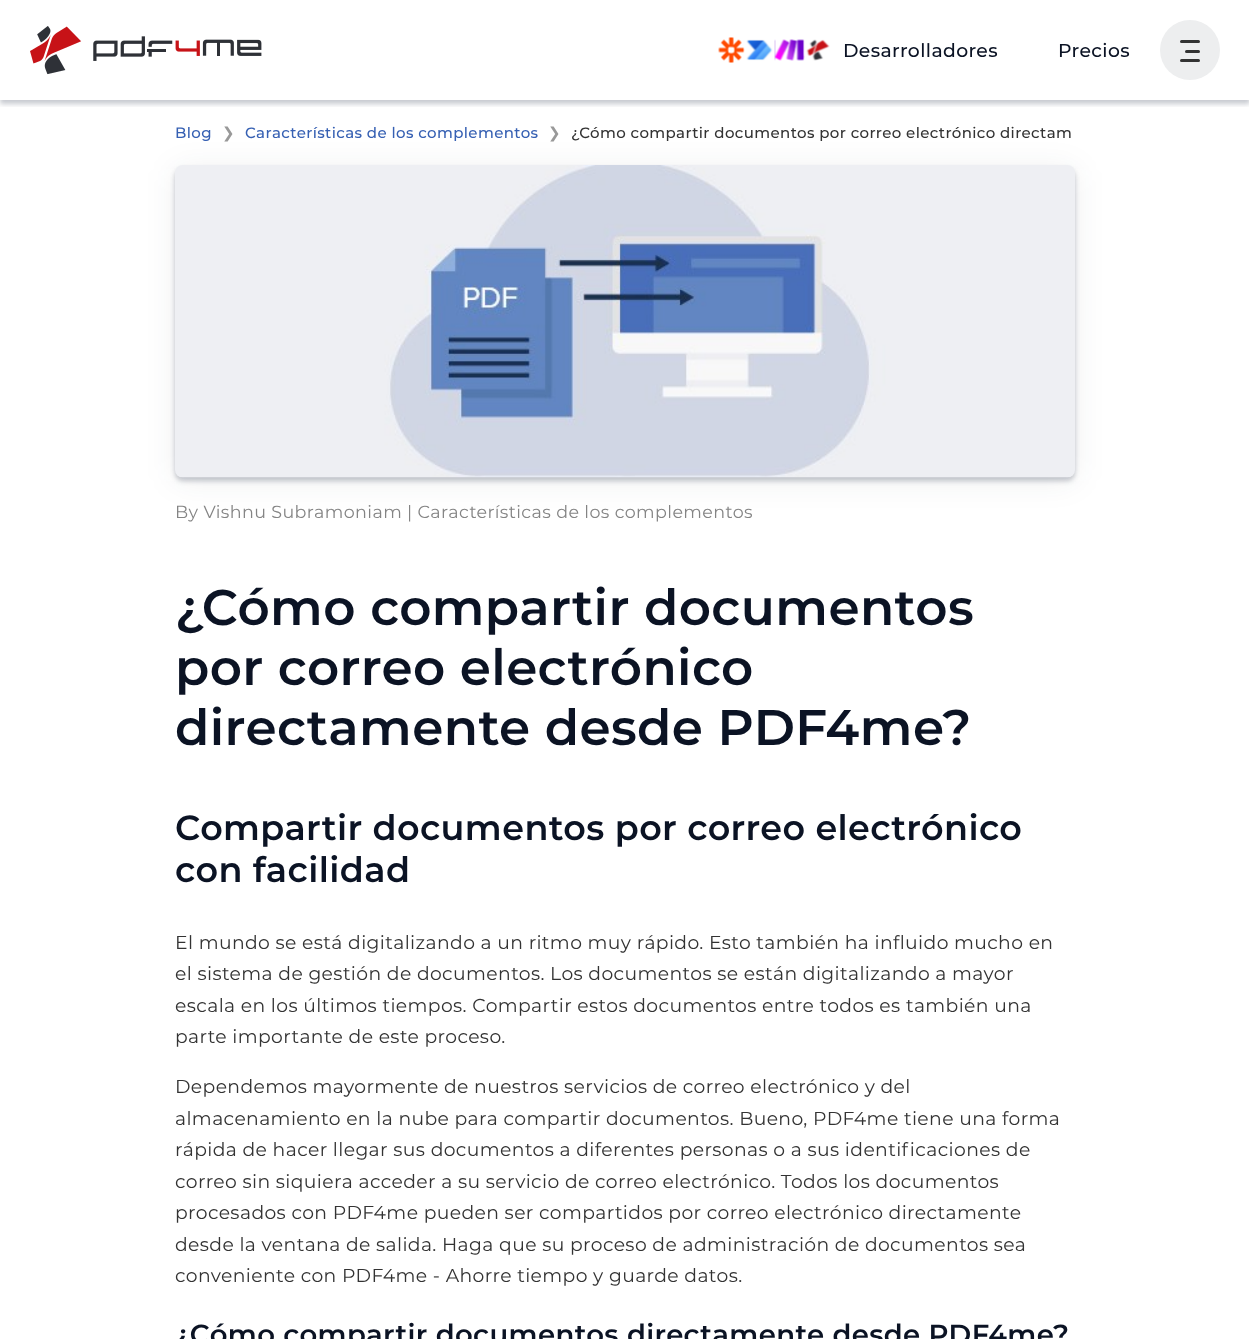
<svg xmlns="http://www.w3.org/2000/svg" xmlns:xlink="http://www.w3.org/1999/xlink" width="1249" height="1339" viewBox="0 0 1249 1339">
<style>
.cls-1{font:500 18.75px Montserrat;letter-spacing:0.38px;fill:#0b1324}
.cls-2{font:500 15px Montserrat;letter-spacing:0.38px;fill:#3660b3}
.cls-3{font:15px DejaVu Sans;letter-spacing:0.38px;fill:#999999}
.cls-4{font:500 15px Montserrat;letter-spacing:0.38px;fill:#333333}
.cls-5{font:17.5px Montserrat;letter-spacing:0.38px;fill:#848484}
.cls-6{font:600 50px Montserrat;letter-spacing:0.38px;fill:#0b1324}
.cls-7{font:600 35px Montserrat;letter-spacing:0.38px;fill:#0b1324}
.cls-8{font:18.75px Montserrat;letter-spacing:0.38px;fill:#333333}
.cls-9{font:600 27.5px Montserrat;letter-spacing:0.38px;fill:#0b1324}
</style>
<defs>
<clipPath id="clip1"><rect x="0" y="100" width="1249" height="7"/></clipPath>
</defs>
<rect width="100%" height="100%" fill="#ffffff"/>
<g clip-path="url(#clip1)">
<rect fill="#162139" fill-opacity="0.24" filter="blur(2.5px)" x="0" y="4" width="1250" height="100"/>
</g>
<image xlink:href="image0.png" x="30" y="26" width="232" height="49"/>
<image xlink:href="image1.png" x="718" y="37" width="112" height="26"/>
<circle fill="#edeeef" cx="1190" cy="50" r="30"/>
<rect fill="#333333" x="1180" y="40" width="20" height="3" rx="1.5"/>
<rect fill="#333333" x="1185" y="50" width="15" height="3" rx="1.5"/>
<rect fill="#333333" x="1180" y="59" width="20" height="3" rx="1.5"/>
<rect fill="#162139" fill-opacity="0.24" filter="blur(2.5px)" x="175" y="169" width="900" height="312" rx="8"/>
<rect fill="#162139" fill-opacity="0.08" filter="blur(15px)" x="175" y="169" width="900" height="312" rx="8"/>
<image xlink:href="image2.png" x="175" y="165" width="900" height="313"/>
<text class="cls-1" x="843" y="57">Desarrolladores</text>
<text class="cls-1" x="1058" y="57">Precios</text>
<text class="cls-2" x="175" y="138">Blog</text>
<text class="cls-3" x="222" y="138">❯</text>
<text class="cls-2" x="245" y="138">Características de los complementos</text>
<text class="cls-3" x="548" y="138">❯</text>
<text class="cls-4" x="571" y="138">¿Cómo compartir documentos por correo electrónico directam</text>
<text class="cls-5" x="175" y="518">By Vishnu Subramoniam | Características de los complementos</text>
<text class="cls-6"><tspan x="175" y="625">¿Cómo compartir documentos</tspan><tspan x="175" y="685">por correo electrónico</tspan><tspan x="175" y="745">directamente desde PDF4me?</tspan></text>
<text class="cls-7"><tspan x="175" y="840">Compartir documentos por correo electrónico</tspan><tspan x="175" y="882">con facilidad</tspan></text>
<text class="cls-8"><tspan x="175" y="949">El mundo se está digitalizando a un ritmo muy rápido. Esto también ha influido mucho en</tspan><tspan x="175" y="980">el sistema de gestión de documentos. Los documentos se están digitalizando a mayor</tspan><tspan x="175" y="1012">escala en los últimos tiempos. Compartir estos documentos entre todos es también una</tspan><tspan x="175" y="1043">parte importante de este proceso.</tspan></text>
<text class="cls-8"><tspan x="175" y="1093">Dependemos mayormente de nuestros servicios de correo electrónico y del</tspan><tspan x="175" y="1125">almacenamiento en la nube para compartir documentos. Bueno, PDF4me tiene una forma</tspan><tspan x="175" y="1156">rápida de hacer llegar sus documentos a diferentes personas o a sus identificaciones de</tspan><tspan x="175" y="1188">correo sin siquiera acceder a su servicio de correo electrónico. Todos los documentos</tspan><tspan x="175" y="1219">procesados con PDF4me pueden ser compartidos por correo electrónico directamente</tspan><tspan x="175" y="1251">desde la ventana de salida. Haga que su proceso de administración de documentos sea</tspan><tspan x="175" y="1282">conveniente con PDF4me - Ahorre tiempo y guarde datos.</tspan></text>
<text class="cls-9" x="175" y="1344">¿Cómo compartir documentos directamente desde PDF4me?</text>
</svg>
